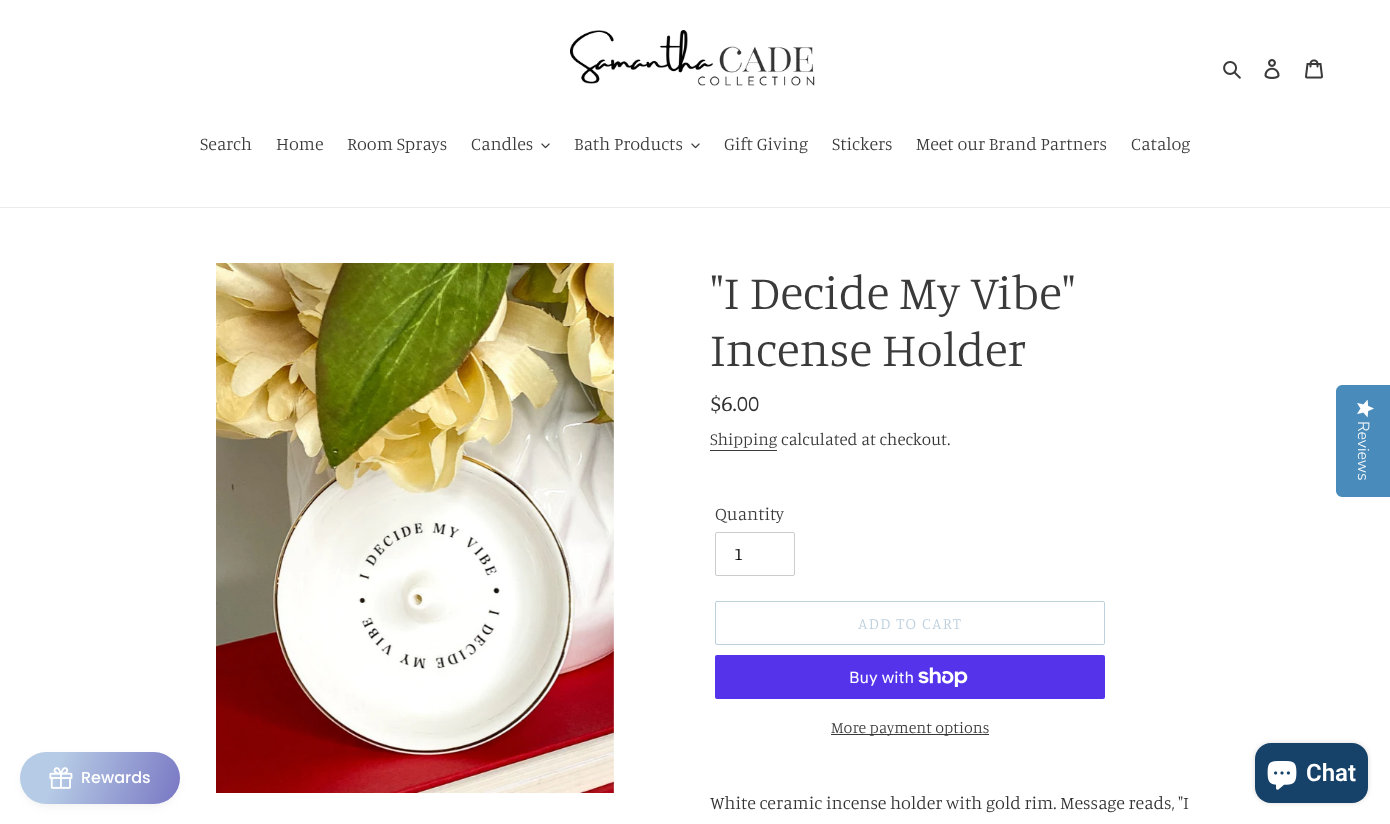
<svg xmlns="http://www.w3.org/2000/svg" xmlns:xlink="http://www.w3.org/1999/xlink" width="1390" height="824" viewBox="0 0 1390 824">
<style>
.cls-1{font:300 18px Manuale;fill:#3a3a3a}
.cls-2{font:300 48px Manuale;fill:#3a3a3a}
.cls-3{font:22.5px Manuale;fill:#333232}
.cls-4{font:300 17px Manuale;fill:#3a3a3a}
.cls-5{font:300 17px Manuale;fill:#333232}
.cls-6{font:300 18px Manuale;fill:#000000}
.cls-7{font:300 16px Manuale;letter-spacing:1.25px;fill:#bdd0de}
.cls-8{font:16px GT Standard;fill:#ffffff}
.cls-9{font:300 16px Manuale;fill:#3a3a3a}
.cls-10{font:300 18px Manuale;fill:#333232}
.cls-11{font:300 16px Nunito Sans;fill:#ffffff}
.cls-12{font:500 16px Poppins;fill:#ffffff}
.cls-13{font:600 24px Roboto;fill:#ffffff}
</style>
<defs>
<linearGradient id="g1" gradientUnits="userSpaceOnUse" x1="21" y1="750" x2="243" y2="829"><stop offset="0.17" stop-color="#b6cbe5"/><stop offset="1" stop-color="#574ab1"/></linearGradient>
</defs>
<rect width="100%" height="100%" fill="#ffffff"/>
<image xlink:href="image0.png" x="570" y="30" width="245" height="56"/>
<image xlink:href="image1.png" x="1223" y="61" width="18" height="18"/>
<image xlink:href="image2.png" x="1264" y="59" width="16" height="20"/>
<image xlink:href="image3.png" x="1305" y="59" width="18" height="20"/>
<rect fill="#ebebeb" x="0" y="207" width="1390" height="1"/>
<image xlink:href="image4.png" x="541" y="143" width="9" height="6"/>
<image xlink:href="image4.png" x="691" y="143" width="9" height="6"/>
<image xlink:href="image5.png" x="216" y="263" width="398" height="530"/>
<rect fill="#3a3a3a" x="710" y="450" width="67" height="1"/>
<rect fill="none" stroke="#cccccc" x="715.5" y="532.5" width="79" height="43" rx="1.5"/>
<rect fill="none" stroke="#bdd0de" x="715.5" y="601.5" width="389" height="43" rx="1.5"/>
<rect fill="#5433eb" x="715" y="655" width="390" height="44" rx="2"/>
<image xlink:href="image6.png" x="918" y="667" width="50" height="20"/>
<rect fill="#3a3a3a" x="831" y="734" width="158" height="1"/>
<path fill="#498cbc" d="M1390 385V497H1342C1339 497 1336 494 1336 491V391C1336 388 1339 385 1342 385Z"/>
<image xlink:href="image7.png" x="1357" y="399" width="17" height="19"/>
<rect fill="#444444" fill-opacity="0.08" filter="blur(4px)" x="22" y="758" width="156" height="48" rx="24"/>
<rect fill="url(#g1)" x="20" y="752" width="160" height="52" rx="26"/>
<image xlink:href="image8.png" x="49" y="767" width="24" height="22"/>
<rect fill="#000000" fill-opacity="0.15" filter="blur(2.5px)" x="1255" y="743" width="113" height="60" rx="16"/>
<rect fill="#164168" x="1255" y="743" width="113" height="60" rx="16"/>
<image xlink:href="image9.png" x="1267" y="761" width="30" height="29"/>
<text class="cls-1" x="200" y="150">Search</text>
<text class="cls-1" x="276" y="150">Home</text>
<text class="cls-1" x="347" y="150">Room Sprays</text>
<text class="cls-1" x="471" y="150">Candles</text>
<text class="cls-1" x="574" y="150">Bath Products</text>
<text class="cls-1" x="724" y="150">Gift Giving</text>
<text class="cls-1" x="832" y="150">Stickers</text>
<text class="cls-1" x="916" y="150">Meet our Brand Partners</text>
<text class="cls-1" x="1131" y="150">Catalog</text>
<text class="cls-2"><tspan x="710" y="309">"I Decide My Vibe"</tspan><tspan x="710" y="366">Incense Holder</tspan></text>
<text class="cls-3" x="710" y="411">$6.00</text>
<text class="cls-4" x="710" y="445">Shipping</text>
<text class="cls-5" x="781" y="445">calculated at checkout.</text>
<text class="cls-1" x="715" y="520">Quantity</text>
<text class="cls-6" x="734" y="560">1</text>
<text class="cls-7" x="858" y="629">ADD TO CART</text>
<text class="cls-8" x="849" y="683">Buy with</text>
<text class="cls-9" x="831" y="733">More payment options</text>
<text class="cls-10" x="710" y="809">White ceramic incense holder with gold rim. Message reads, "I</text>
<text class="cls-11" x="1358" y="421" transform="rotate(90 1358 421)">Reviews</text>
<text class="cls-12" x="81" y="783">Rewards</text>
<text class="cls-13" x="1306" y="781">Chat</text>
</svg>
